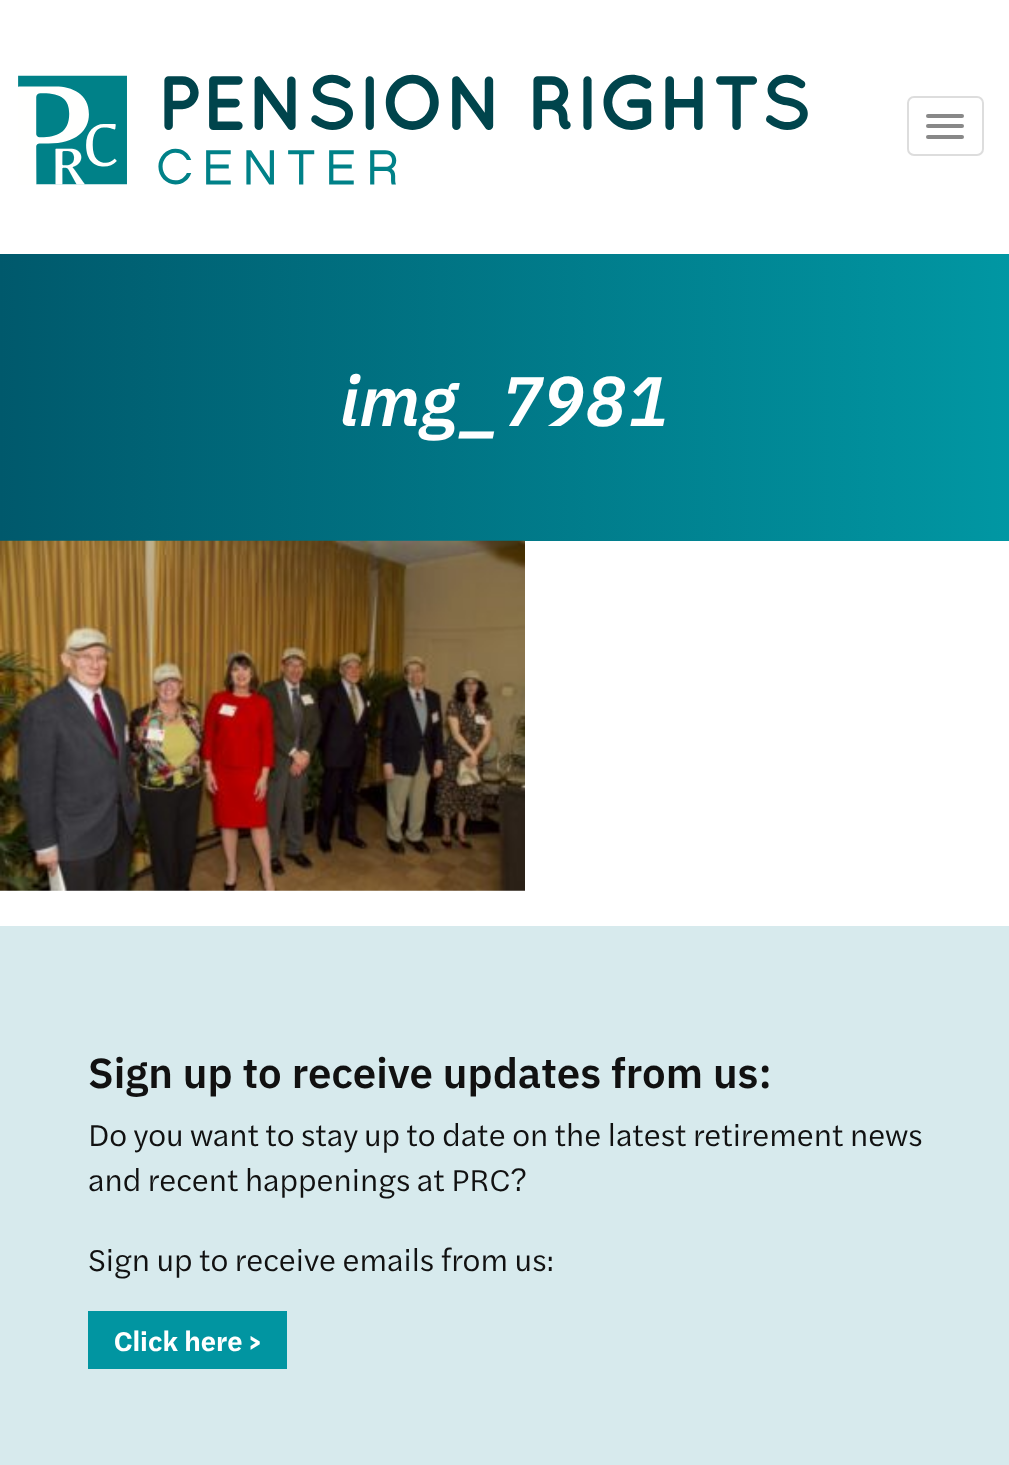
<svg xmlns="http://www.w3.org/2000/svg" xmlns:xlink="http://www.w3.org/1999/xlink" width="1009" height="1465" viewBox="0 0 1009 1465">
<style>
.cls-1{font:italic 600 70px IBM Plex Sans;fill:#ffffff}
.cls-2{font:600 42px IBM Plex Sans;fill:#111111}
.cls-3{font:31.5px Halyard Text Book;fill:#111111}
.cls-4{font:600 28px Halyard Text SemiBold;fill:#ffffff}
</style>
<defs>
<linearGradient id="g1" gradientUnits="userSpaceOnUse" x1="0" y1="397" x2="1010" y2="397"><stop offset="0" stop-color="#00596c"/><stop offset="1" stop-color="#0197a3"/></linearGradient>
</defs>
<rect width="100%" height="100%" fill="#ffffff"/>
<image xlink:href="image0.png" x="18" y="74" width="790" height="111"/>
<rect fill="none" stroke="#dddddd" stroke-width="2" x="908" y="97" width="75" height="58" rx="6"/>
<rect fill="#888888" x="926" y="114" width="38" height="4" rx="2"/>
<rect fill="#888888" x="926" y="124" width="38" height="4" rx="2"/>
<rect fill="#888888" x="926" y="135" width="38" height="4" rx="2"/>
<rect fill="url(#g1)" x="0" y="254" width="1009" height="287"/>
<image xlink:href="image1.png" x="0" y="540" width="525" height="351"/>
<rect fill="#d7eaed" x="0" y="926" width="1009" height="539"/>
<rect fill="#0195a1" x="88" y="1311" width="199" height="58"/>
<text class="cls-1" x="340" y="426">img_7981</text>
<text class="cls-2" x="88" y="1088">Sign up to receive updates from us:</text>
<text class="cls-3"><tspan x="88" y="1146">Do you want to stay up to date on the latest retirement news</tspan><tspan x="88" y="1191">and recent happenings at PRC?</tspan></text>
<text class="cls-3" x="88" y="1271">Sign up to receive emails from us:</text>
<text class="cls-4" x="114" y="1351">Click here &gt;</text>
</svg>
